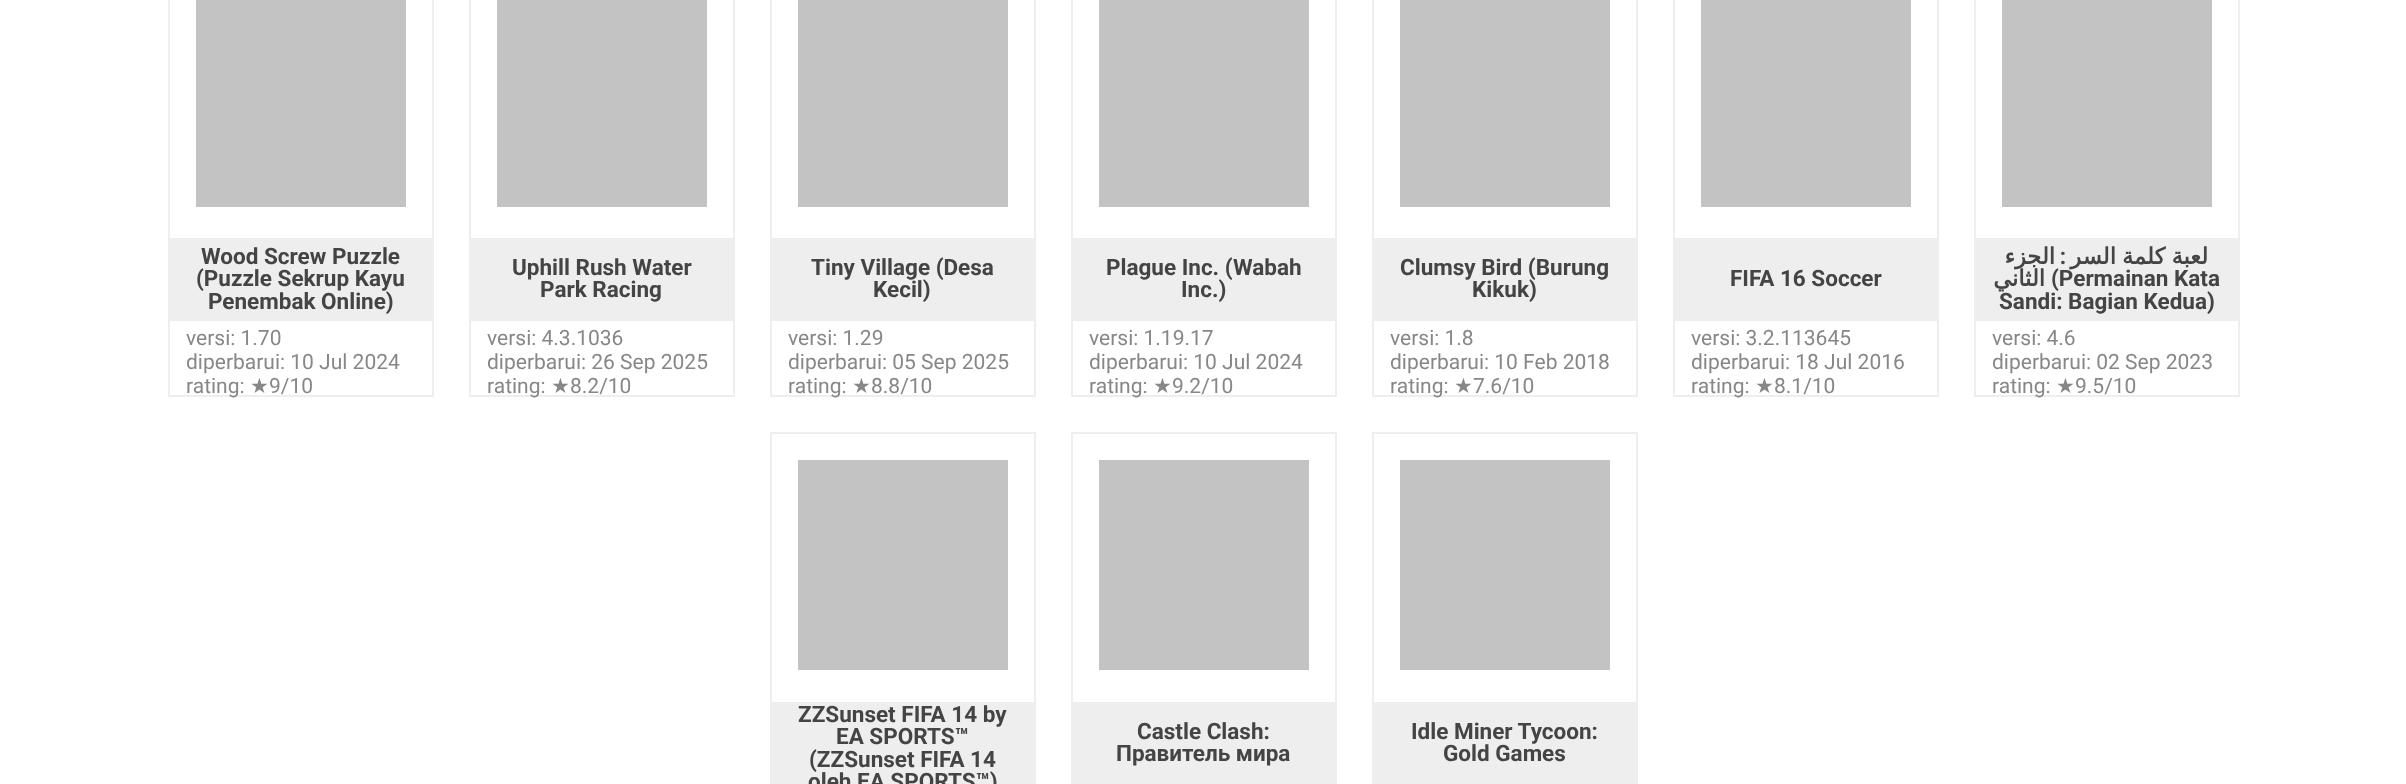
<svg xmlns="http://www.w3.org/2000/svg" xmlns:xlink="http://www.w3.org/1999/xlink" width="2406" height="784" viewBox="0 0 2406 784">
<style>
.cls-1{font:bold 22.5px Roboto;fill:#444444}
.cls-2{font:21px Roboto;fill:#878787}
.cls-3{font:21px DejaVu Sans;fill:#878787}
.cls-4{font:bold 22.5px DejaVu Sans;direction:rtl;fill:#444444}
.cls-5{font:bold 22.5px Roboto;direction:rtl;fill:#444444}
</style>
<rect width="100%" height="100%" fill="#ffffff"/>
<rect fill="none" stroke="#eeeeee" stroke-width="2" x="169" y="-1" width="264" height="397"/>
<rect fill="#c3c3c3" x="196" y="0" width="210" height="207"/>
<rect fill="#eeeeee" x="170" y="238" width="262" height="83"/>
<rect fill="none" stroke="#eeeeee" stroke-width="2" x="470" y="-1" width="264" height="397"/>
<rect fill="#c3c3c3" x="497" y="0" width="210" height="207"/>
<rect fill="#eeeeee" x="471" y="238" width="262" height="83"/>
<rect fill="none" stroke="#eeeeee" stroke-width="2" x="771" y="-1" width="264" height="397"/>
<rect fill="#c3c3c3" x="798" y="0" width="210" height="207"/>
<rect fill="#eeeeee" x="772" y="238" width="262" height="83"/>
<rect fill="none" stroke="#eeeeee" stroke-width="2" x="1072" y="-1" width="264" height="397"/>
<rect fill="#c3c3c3" x="1099" y="0" width="210" height="207"/>
<rect fill="#eeeeee" x="1073" y="238" width="262" height="83"/>
<rect fill="none" stroke="#eeeeee" stroke-width="2" x="1373" y="-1" width="264" height="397"/>
<rect fill="#c3c3c3" x="1400" y="0" width="210" height="207"/>
<rect fill="#eeeeee" x="1374" y="238" width="262" height="83"/>
<rect fill="none" stroke="#eeeeee" stroke-width="2" x="1674" y="-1" width="264" height="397"/>
<rect fill="#c3c3c3" x="1701" y="0" width="210" height="207"/>
<rect fill="#eeeeee" x="1675" y="238" width="262" height="83"/>
<rect fill="none" stroke="#eeeeee" stroke-width="2" x="1975" y="-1" width="264" height="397"/>
<rect fill="#c3c3c3" x="2002" y="0" width="210" height="207"/>
<rect fill="#eeeeee" x="1976" y="238" width="262" height="83"/>
<rect fill="none" stroke="#eeeeee" stroke-width="2" x="771" y="433" width="264" height="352"/>
<rect fill="#c3c3c3" x="798" y="460" width="210" height="210"/>
<rect fill="#eeeeee" x="772" y="702" width="262" height="82"/>
<rect fill="none" stroke="#eeeeee" stroke-width="2" x="1072" y="433" width="264" height="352"/>
<rect fill="#c3c3c3" x="1099" y="460" width="210" height="210"/>
<rect fill="#eeeeee" x="1073" y="702" width="262" height="82"/>
<rect fill="none" stroke="#eeeeee" stroke-width="2" x="1373" y="433" width="264" height="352"/>
<rect fill="#c3c3c3" x="1400" y="460" width="210" height="210"/>
<rect fill="#eeeeee" x="1374" y="702" width="262" height="82"/>
<text class="cls-1" x="201" y="264">Wood Screw Puzzle</text>
<text class="cls-1" x="196" y="286">(Puzzle Sekrup Kayu</text>
<text class="cls-1" x="208" y="309">Penembak Online)</text>
<text class="cls-2"><tspan x="186" y="345">versi: 1.70</tspan><tspan x="186" y="369">diperbarui: 10 Jul 2024</tspan><tspan x="186" y="393">rating:</tspan></text>
<text class="cls-3" x="250" y="393">★</text>
<text class="cls-2" x="269" y="393">9/10</text>
<text class="cls-1" x="512" y="275">Uphill Rush Water</text>
<text class="cls-1" x="540" y="297">Park Racing</text>
<text class="cls-2"><tspan x="487" y="345">versi: 4.3.1036</tspan><tspan x="487" y="369">diperbarui: 26 Sep 2025</tspan><tspan x="487" y="393">rating:</tspan></text>
<text class="cls-3" x="551" y="393">★</text>
<text class="cls-2" x="570" y="393">8.2/10</text>
<text class="cls-1" x="811" y="275">Tiny Village (Desa</text>
<text class="cls-1" x="873" y="297">Kecil)</text>
<text class="cls-2"><tspan x="788" y="345">versi: 1.29</tspan><tspan x="788" y="369">diperbarui: 05 Sep 2025</tspan><tspan x="788" y="393">rating:</tspan></text>
<text class="cls-3" x="852" y="393">★</text>
<text class="cls-2" x="871" y="393">8.8/10</text>
<text class="cls-1" x="1106" y="275">Plague Inc. (Wabah</text>
<text class="cls-1" x="1181" y="297">Inc.)</text>
<text class="cls-2"><tspan x="1089" y="345">versi: 1.19.17</tspan><tspan x="1089" y="369">diperbarui: 10 Jul 2024</tspan><tspan x="1089" y="393">rating:</tspan></text>
<text class="cls-3" x="1153" y="393">★</text>
<text class="cls-2" x="1172" y="393">9.2/10</text>
<text class="cls-1" x="1400" y="275">Clumsy Bird (Burung</text>
<text class="cls-1" x="1472" y="297">Kikuk)</text>
<text class="cls-2"><tspan x="1390" y="345">versi: 1.8</tspan><tspan x="1390" y="369">diperbarui: 10 Feb 2018</tspan><tspan x="1390" y="393">rating:</tspan></text>
<text class="cls-3" x="1454" y="393">★</text>
<text class="cls-2" x="1473" y="393">7.6/10</text>
<text class="cls-1" x="1730" y="286">FIFA 16 Soccer</text>
<text class="cls-2"><tspan x="1691" y="345">versi: 3.2.113645</tspan><tspan x="1691" y="369">diperbarui: 18 Jul 2016</tspan><tspan x="1691" y="393">rating:</tspan></text>
<text class="cls-3" x="1755" y="393">★</text>
<text class="cls-2" x="1774" y="393">8.1/10</text>
<text class="cls-4" x="2055" y="264">الجزء</text>
<text class="cls-5" x="2066" y="264">:</text>
<text class="cls-4" x="2208" y="264" word-spacing="-1">لعبة كلمة السر</text>
<text class="cls-4" x="2045" y="286">الثاني</text>
<text class="cls-1" x="2051" y="286">(Permainan Kata</text>
<text class="cls-1" x="1999" y="309">Sandi: Bagian Kedua)</text>
<text class="cls-2"><tspan x="1992" y="345">versi: 4.6</tspan><tspan x="1992" y="369">diperbarui: 02 Sep 2023</tspan><tspan x="1992" y="393">rating:</tspan></text>
<text class="cls-3" x="2056" y="393">★</text>
<text class="cls-2" x="2075" y="393">9.5/10</text>
<text class="cls-1" x="798" y="722">ZZSunset FIFA 14 by</text>
<text class="cls-1" x="836" y="744">EA SPORTS™</text>
<text class="cls-1" x="809" y="767">(ZZSunset FIFA 14</text>
<text class="cls-1" x="808" y="789">oleh EA SPORTS™)</text>
<text class="cls-1" x="1137" y="739">Castle Clash:</text>
<text class="cls-1" x="1116" y="761">Правитель мира</text>
<text class="cls-1" x="1411" y="739">Idle Miner Tycoon:</text>
<text class="cls-1" x="1443" y="761">Gold Games</text>
</svg>
